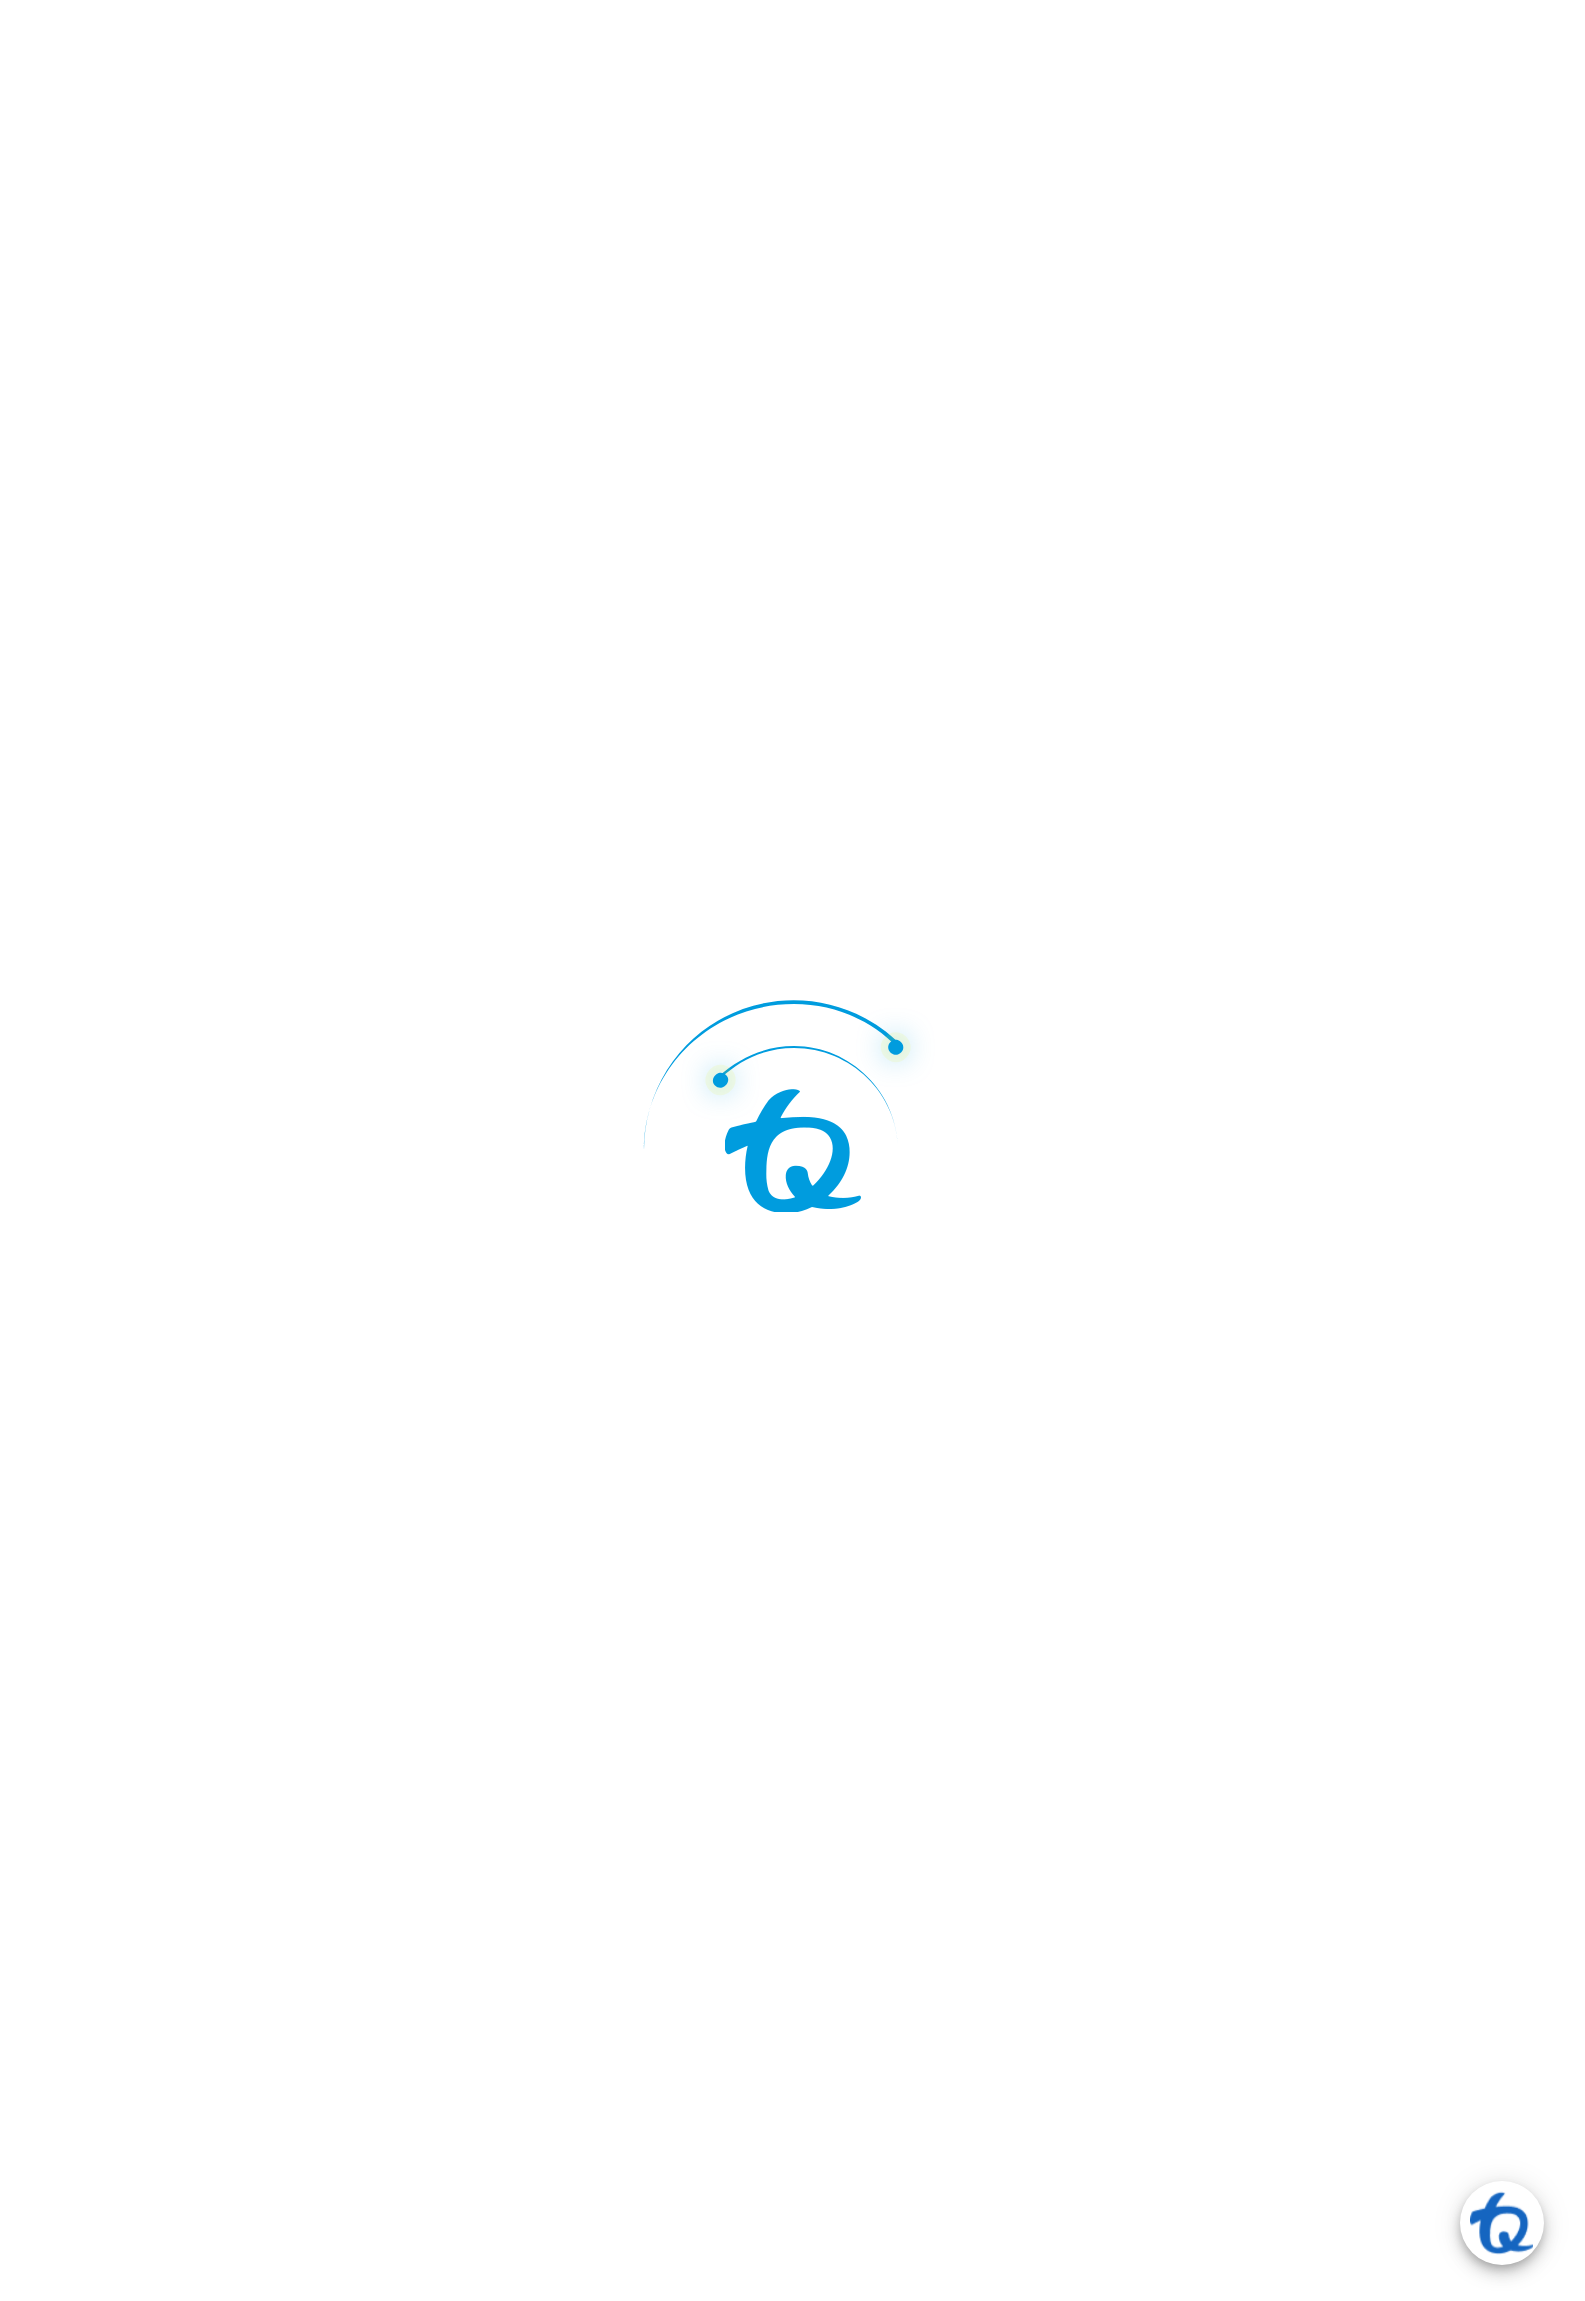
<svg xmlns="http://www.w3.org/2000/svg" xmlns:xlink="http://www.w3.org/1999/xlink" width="1585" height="2301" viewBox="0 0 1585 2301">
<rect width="100%" height="100%" fill="#ffffff"/>
<image xlink:href="image0.png" x="725" y="1089" width="136" height="123"/>
<path fill="#009cde" d="M794 1004C711 1004 644 1069 644 1150C644 1122 652 1094 667 1070C719 988 832 977 900 1044L897 1047C871 1020 834 1004 794 1004Z"/>
<path fill="none" stroke="#ffff00" stroke-opacity="0.1" stroke-width="7.5" d="M888 1039.5C898 1029 914 1044.5 903.5 1055C893 1065.5 877.5 1049.5 888 1039.5Z"/>
<rect fill="#009cde" filter="blur(15px)" x="888" y="1040" width="15" height="15" rx="7.5"/>
<path fill="#009cde" d="M890.5 1042C897.5 1035 908 1045.5 901 1052.5C894 1059.5 883.5 1049 890.5 1042Z"/>
<path fill="#009cde" d="M794 1046C851 1046 898 1093 898 1150C898 1094 851 1048 794 1048C765 1048 740 1060 721 1078L719 1076C739 1058 765 1046 794 1046Z"/>
<path fill="none" stroke="#ffff00" stroke-opacity="0.1" stroke-width="7.5" d="M712.5 1088C702 1077.5 718 1061.5 728.5 1072C739 1082.5 723 1098.5 712.5 1088Z"/>
<rect fill="#009cde" filter="blur(15px)" x="713" y="1073" width="15" height="15" rx="7.5"/>
<path fill="#009cde" d="M715 1085.5C708.5 1078.5 719 1068 726 1075C733 1081.5 722 1092.5 715 1085.5Z"/>
<rect fill="#000000" fill-opacity="0.12" filter="blur(13.5px)" x="1460" y="2183" width="84" height="84" rx="42"/>
<rect fill="#000000" fill-opacity="0.14" filter="blur(7.5px)" x="1460" y="2190" width="84" height="84" rx="42"/>
<rect fill="#000000" fill-opacity="0.2" filter="blur(4px)" x="1461" y="2187" width="81" height="81" rx="40.5"/>
<circle fill="#ffffff" cx="1502" cy="2223" r="42"/>
<image xlink:href="image1.png" x="1470" y="2191" width="63" height="64"/>
</svg>
